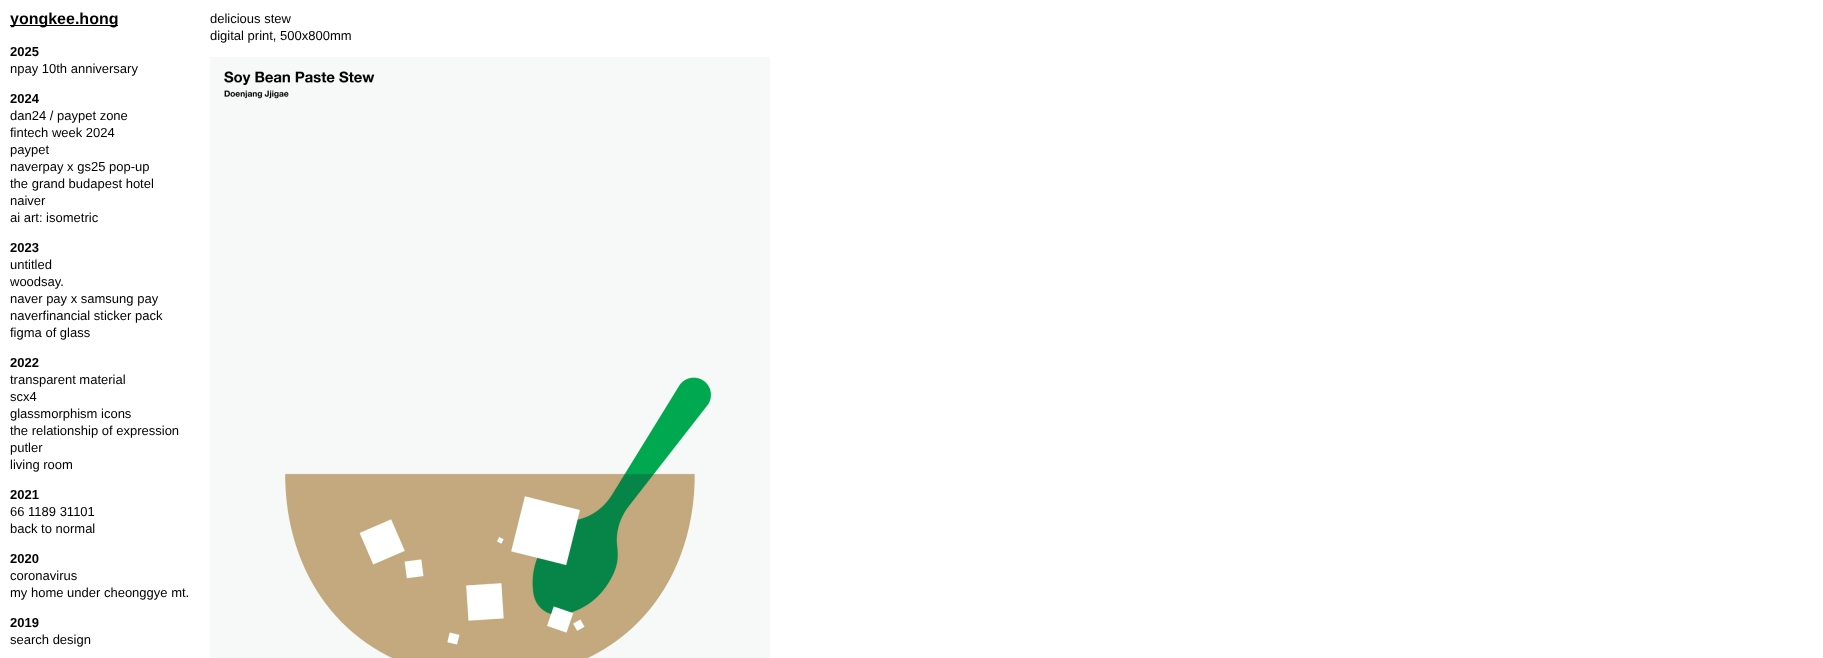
<svg xmlns="http://www.w3.org/2000/svg" xmlns:xlink="http://www.w3.org/1999/xlink" width="1823" height="658" viewBox="0 0 1823 658">
<style>
.cls-1{font:bold 16px Liberation Sans;fill:#000000}
.cls-2{font:bold 13px Liberation Sans;fill:#000000}
.cls-3{font:13px Liberation Sans;fill:#000000}
</style>
<rect width="100%" height="100%" fill="#ffffff"/>
<rect fill="#000000" x="10" y="25" width="108" height="1"/>
<image xlink:href="image0.png" x="210" y="57" width="560" height="601"/>
<text class="cls-1" x="10" y="24">yongkee.hong</text>
<text class="cls-2" x="10" y="56">2025</text>
<text class="cls-3" x="10" y="73">npay 10th anniversary</text>
<text class="cls-2" x="10" y="103">2024</text>
<text class="cls-3"><tspan x="10" y="120">dan24 / paypet zone</tspan><tspan x="10" y="137">fintech week 2024</tspan><tspan x="10" y="154">paypet</tspan><tspan x="10" y="171">naverpay x gs25 pop-up</tspan><tspan x="10" y="188">the grand budapest hotel</tspan><tspan x="10" y="205">naiver</tspan><tspan x="10" y="222">ai art: isometric</tspan></text>
<text class="cls-2" x="10" y="252">2023</text>
<text class="cls-3"><tspan x="10" y="269">untitled</tspan><tspan x="10" y="286">woodsay.</tspan><tspan x="10" y="303">naver pay x samsung pay</tspan><tspan x="10" y="320">naverfinancial sticker pack</tspan><tspan x="10" y="337">figma of glass</tspan></text>
<text class="cls-2" x="10" y="367">2022</text>
<text class="cls-3"><tspan x="10" y="384">transparent material</tspan><tspan x="10" y="401">scx4</tspan><tspan x="10" y="418">glassmorphism icons</tspan><tspan x="10" y="435">the relationship of expression</tspan><tspan x="10" y="452">putler</tspan><tspan x="10" y="469">living room</tspan></text>
<text class="cls-2" x="10" y="499">2021</text>
<text class="cls-3"><tspan x="10" y="516">66 1189 31101</tspan><tspan x="10" y="533">back to normal</tspan></text>
<text class="cls-2" x="10" y="563">2020</text>
<text class="cls-3"><tspan x="10" y="580">coronavirus</tspan><tspan x="10" y="597">my home under cheonggye mt.</tspan></text>
<text class="cls-2" x="10" y="627">2019</text>
<text class="cls-3" x="10" y="644">search design</text>
<text class="cls-3"><tspan x="210" y="23">delicious stew</tspan><tspan x="210" y="40">digital print, 500x800mm</tspan></text>
</svg>
